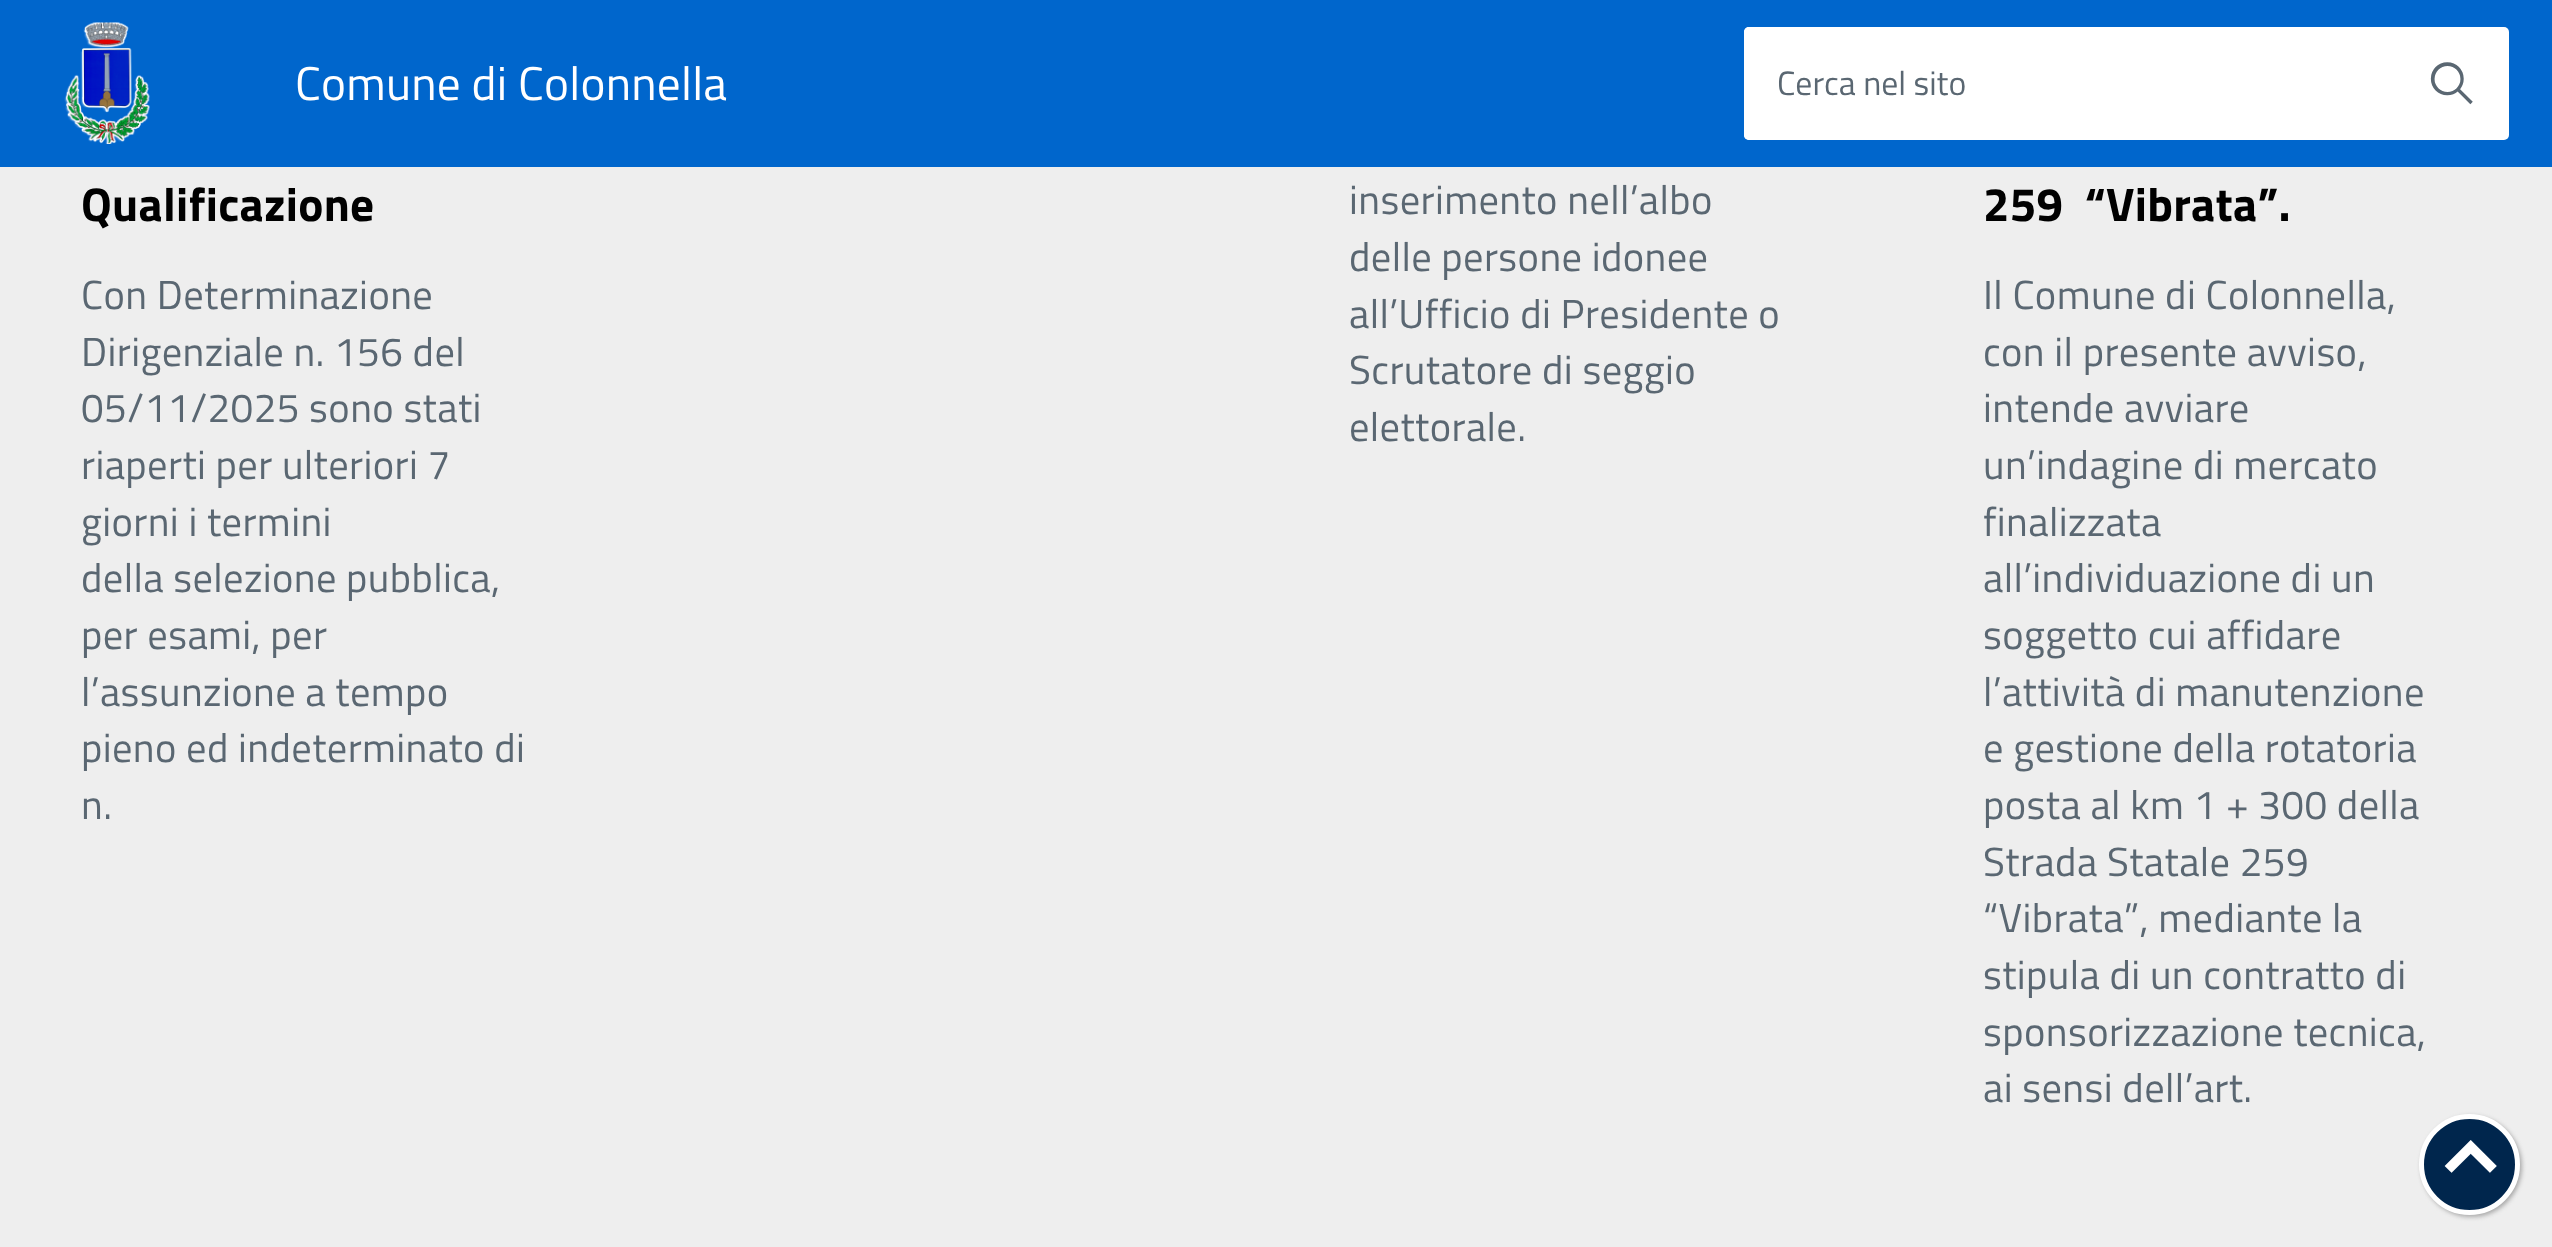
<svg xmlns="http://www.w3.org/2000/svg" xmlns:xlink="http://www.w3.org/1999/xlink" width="2552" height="1247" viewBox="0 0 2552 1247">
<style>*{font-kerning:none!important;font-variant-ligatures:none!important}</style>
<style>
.cls-1{font:47.25px Titillium Web;letter-spacing:0.25px;fill:#ffffff}
.cls-2{font:bold 40.5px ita;fill:#5a6772}
.cls-3{font:33.75px Titillium Web;fill:#5a6772}
.cls-4{font:bold 47.25px Titillium Web;letter-spacing:0.3px;fill:#000000}
.cls-5{font:40.5px Titillium Web;letter-spacing:0.4px;fill:#5a6772}
.cls-6{font:bold 50px ita;fill:#ffffff}
</style>
<rect width="100%" height="100%" fill="#eeeeee"/>
<rect fill="#0066cc" x="0" y="0" width="2552" height="167"/>
<image xlink:href="image0.png" x="64" y="22" width="86" height="122"/>
<rect fill="#ffffff" x="1744" y="27" width="765" height="113" rx="5"/>
<rect fill="#ffffff" x="1744" y="27" width="652" height="113" rx="5"/>
<rect fill="#aaaaaa" filter="blur(2px)" x="2421" y="1116" width="101" height="101" rx="50.5"/>
<circle fill="#00264d" stroke="#ffffff" stroke-width="5" cx="2469.5" cy="1164.5" r="48"/>
<text class="cls-1" x="295" y="100">Comune di Colonnella</text>
<text class="cls-2" x="2470" y="104" transform="rotate(-90 2470 104)">🔍</text>
<text class="cls-3" x="1777" y="95">Cerca nel sito</text>
<text class="cls-4" x="81" y="221">Qualificazione</text>
<text class="cls-5"><tspan x="81" y="309">Con Determinazione</tspan><tspan x="81" y="366">Dirigenziale n. 156 del</tspan><tspan x="81" y="422">05/11/2025 sono stati</tspan><tspan x="81" y="479">riaperti per ulteriori 7</tspan><tspan x="81" y="536">giorni i termini</tspan><tspan x="81" y="592">della selezione pubblica,</tspan><tspan x="81" y="649">per esami, per</tspan><tspan x="81" y="706">l’assunzione a tempo</tspan><tspan x="81" y="762">pieno ed indeterminato di</tspan><tspan x="81" y="819">n.</tspan></text>
<text class="cls-5"><tspan x="1349" y="214">inserimento nell’albo</tspan><tspan x="1349" y="271">delle persone idonee</tspan><tspan x="1349" y="328">all’Ufficio di Presidente o</tspan><tspan x="1349" y="384">Scrutatore di seggio</tspan><tspan x="1349" y="441">elettorale.</tspan></text>
<text class="cls-4" xml:space="preserve" x="1983" y="221">259  “Vibrata”.</text>
<text class="cls-5"><tspan x="1983" y="309">Il Comune di Colonnella,</tspan><tspan x="1983" y="366">con il presente avviso,</tspan><tspan x="1983" y="422">intende avviare</tspan><tspan x="1983" y="479">un’indagine di mercato</tspan><tspan x="1983" y="536">finalizzata</tspan><tspan x="1983" y="592">all’individuazione di un</tspan><tspan x="1983" y="649">soggetto cui affidare</tspan><tspan x="1983" y="706">l’attività di manutenzione</tspan><tspan x="1983" y="762">e gestione della rotatoria</tspan><tspan x="1983" y="819">posta al km 1 + 300 della</tspan><tspan x="1983" y="876">Strada Statale 259</tspan><tspan x="1983" y="932">“Vibrata”, mediante la</tspan><tspan x="1983" y="989">stipula di un contratto di</tspan><tspan x="1983" y="1046">sponsorizzazione tecnica,</tspan><tspan x="1983" y="1102">ai sensi dell’art.</tspan></text>
<text class="cls-6" x="2445" y="1179">⏷</text>
</svg>
